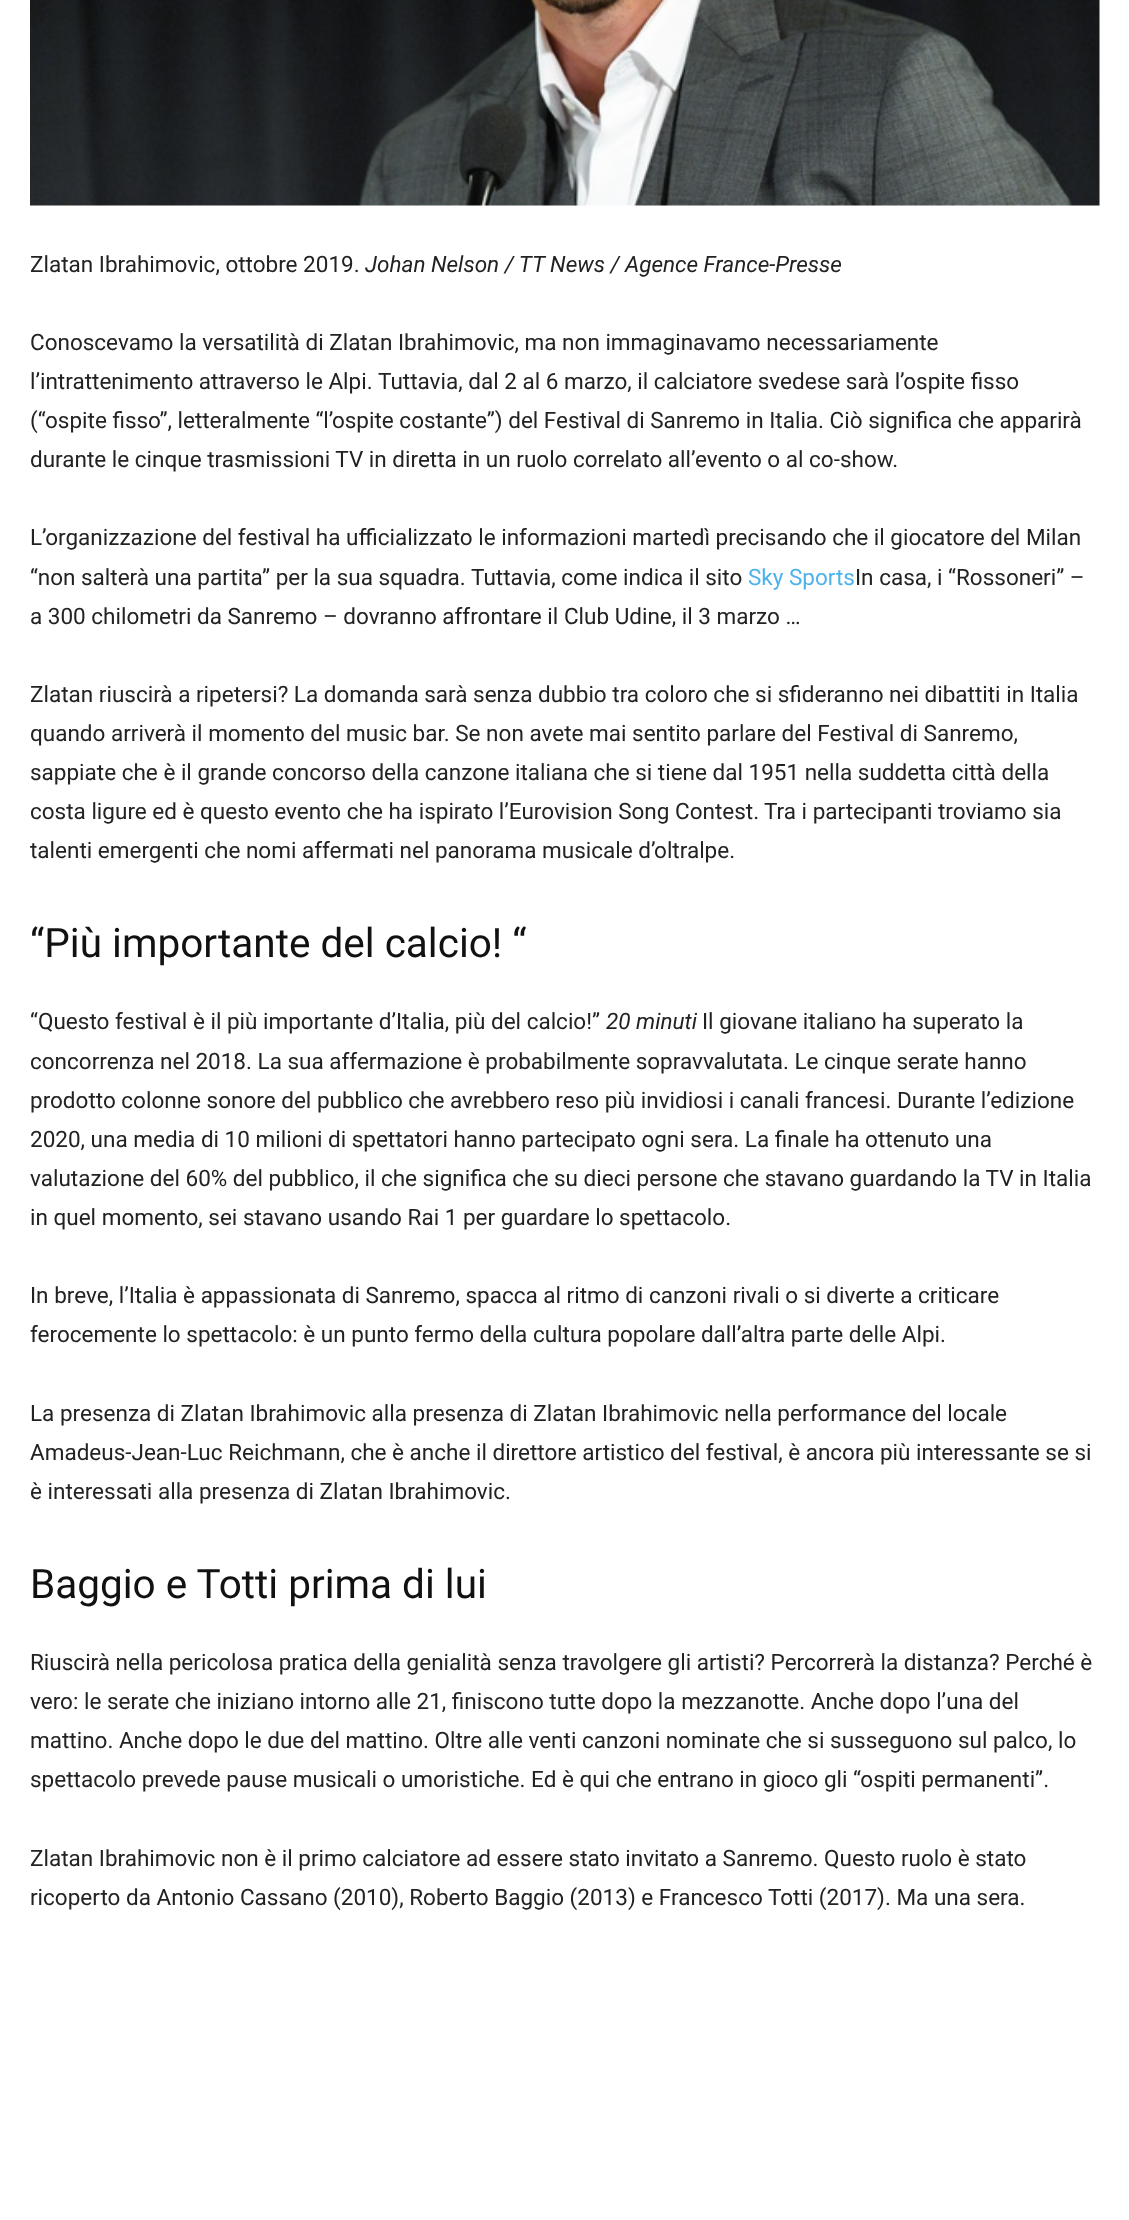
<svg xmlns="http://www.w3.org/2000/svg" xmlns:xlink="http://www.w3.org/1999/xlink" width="1129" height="2220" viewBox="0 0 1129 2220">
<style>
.cls-1{font:22.5px Roboto;fill:#222222}
.cls-2{font:italic 22.5px Roboto;fill:#222222}
.cls-3{font:22.5px Roboto;fill:#4db2ec}
.cls-4{font:40.5px Roboto;fill:#111111}
</style>
<rect width="100%" height="100%" fill="#ffffff"/>
<image xlink:href="image0.png" x="30" y="0" width="1070" height="206"/>
<text class="cls-1" x="30" y="272">Zlatan Ibrahimovic, ottobre 2019.</text>
<text class="cls-2" x="365" y="272">Johan Nelson / TT News / Agence France-Presse</text>
<text class="cls-1"><tspan x="30" y="350">Conoscevamo la versatilità di Zlatan Ibrahimovic, ma non immaginavamo necessariamente</tspan><tspan x="30" y="389">l’intrattenimento attraverso le Alpi.</tspan></text>
<text class="cls-1" x="378" y="389">Tuttavia, dal 2 al 6 marzo, il calciatore svedese sarà l’ospite fisso</text>
<text class="cls-1"><tspan x="30" y="428">(“ospite fisso”, letteralmente “l’ospite costante”) del Festival di Sanremo in Italia. Ciò significa che apparirà</tspan><tspan x="30" y="467">durante le cinque trasmissioni TV in diretta in un ruolo correlato all’evento o al co-show.</tspan></text>
<text class="cls-1"><tspan x="30" y="545">L’organizzazione del festival ha ufficializzato le informazioni martedì precisando che il giocatore del Milan</tspan><tspan x="30" y="585">“non salterà una partita” per la sua squadra.</tspan></text>
<text class="cls-1" x="471" y="585">Tuttavia, come indica il sito</text>
<text class="cls-3" x="748" y="585">Sky Sports</text>
<text class="cls-1" x="855" y="585">In casa, i “Rossoneri” –</text>
<text class="cls-1" x="30" y="624">a 300 chilometri da Sanremo – dovranno affrontare il Club Udine, il 3 marzo …</text>
<text class="cls-1"><tspan x="30" y="702">Zlatan riuscirà a ripetersi? La domanda sarà senza dubbio tra coloro che si sfideranno nei dibattiti in Italia</tspan><tspan x="30" y="741">quando arriverà il momento del music bar. Se non avete mai sentito parlare del Festival di Sanremo,</tspan><tspan x="30" y="780">sappiate che è il grande concorso della canzone italiana che si tiene dal 1951 nella suddetta città della</tspan><tspan x="30" y="819">costa ligure ed è questo evento che ha ispirato l’Eurovision Song Contest.</tspan></text>
<text class="cls-1" x="764" y="819">Tra i partecipanti troviamo sia</text>
<text class="cls-1" x="30" y="858">talenti emergenti che nomi affermati nel panorama musicale d’oltralpe.</text>
<text class="cls-4" x="30" y="957">“Più importante del calcio! “</text>
<text class="cls-1" x="30" y="1029">“Questo festival è il più importante d’Italia, più del calcio!”</text>
<text class="cls-2" x="606" y="1029">20 minuti</text>
<text class="cls-1" x="702" y="1029">Il giovane italiano ha superato la</text>
<text class="cls-1"><tspan x="30" y="1069">concorrenza nel 2018. La sua affermazione è probabilmente sopravvalutata. Le cinque serate hanno</tspan><tspan x="30" y="1108">prodotto colonne sonore del pubblico che avrebbero reso più invidiosi i canali francesi. Durante l’edizione</tspan><tspan x="30" y="1147">2020, una media di 10 milioni di spettatori hanno partecipato ogni sera. La finale ha ottenuto una</tspan><tspan x="30" y="1186">valutazione del 60% del pubblico, il che significa che su dieci persone che stavano guardando la TV in Italia</tspan><tspan x="30" y="1225">in quel momento, sei stavano usando Rai 1 per guardare lo spettacolo.</tspan></text>
<text class="cls-1"><tspan x="30" y="1303">In breve, l’Italia è appassionata di Sanremo, spacca al ritmo di canzoni rivali o si diverte a criticare</tspan><tspan x="30" y="1342">ferocemente lo spettacolo: è un punto fermo della cultura popolare dall’altra parte delle Alpi.</tspan></text>
<text class="cls-1"><tspan x="30" y="1421">La presenza di Zlatan Ibrahimovic alla presenza di Zlatan Ibrahimovic nella performance del locale</tspan><tspan x="30" y="1460">Amadeus-Jean-Luc Reichmann, che è anche il direttore artistico del festival, è ancora più interessante se si</tspan><tspan x="30" y="1499">è interessati alla presenza di Zlatan Ibrahimovic.</tspan></text>
<text class="cls-4" x="30" y="1598">Baggio e Totti prima di lui</text>
<text class="cls-1"><tspan x="30" y="1670">Riuscirà nella pericolosa pratica della genialità senza travolgere gli artisti? Percorrerà la distanza? Perché è</tspan><tspan x="30" y="1709">vero: le serate che iniziano intorno alle 21, finiscono tutte dopo la mezzanotte. Anche dopo l’una del</tspan><tspan x="30" y="1748">mattino. Anche dopo le due del mattino. Oltre alle venti canzoni nominate che si susseguono sul palco, lo</tspan><tspan x="30" y="1787">spettacolo prevede pause musicali o umoristiche. Ed è qui che entrano in gioco gli “ospiti permanenti”.</tspan></text>
<text class="cls-1"><tspan x="30" y="1866">Zlatan Ibrahimovic non è il primo calciatore ad essere stato invitato a Sanremo. Questo ruolo è stato</tspan><tspan x="30" y="1905">ricoperto da Antonio Cassano (2010), Roberto Baggio (2013) e Francesco Totti (2017). Ma una sera.</tspan></text>
</svg>
